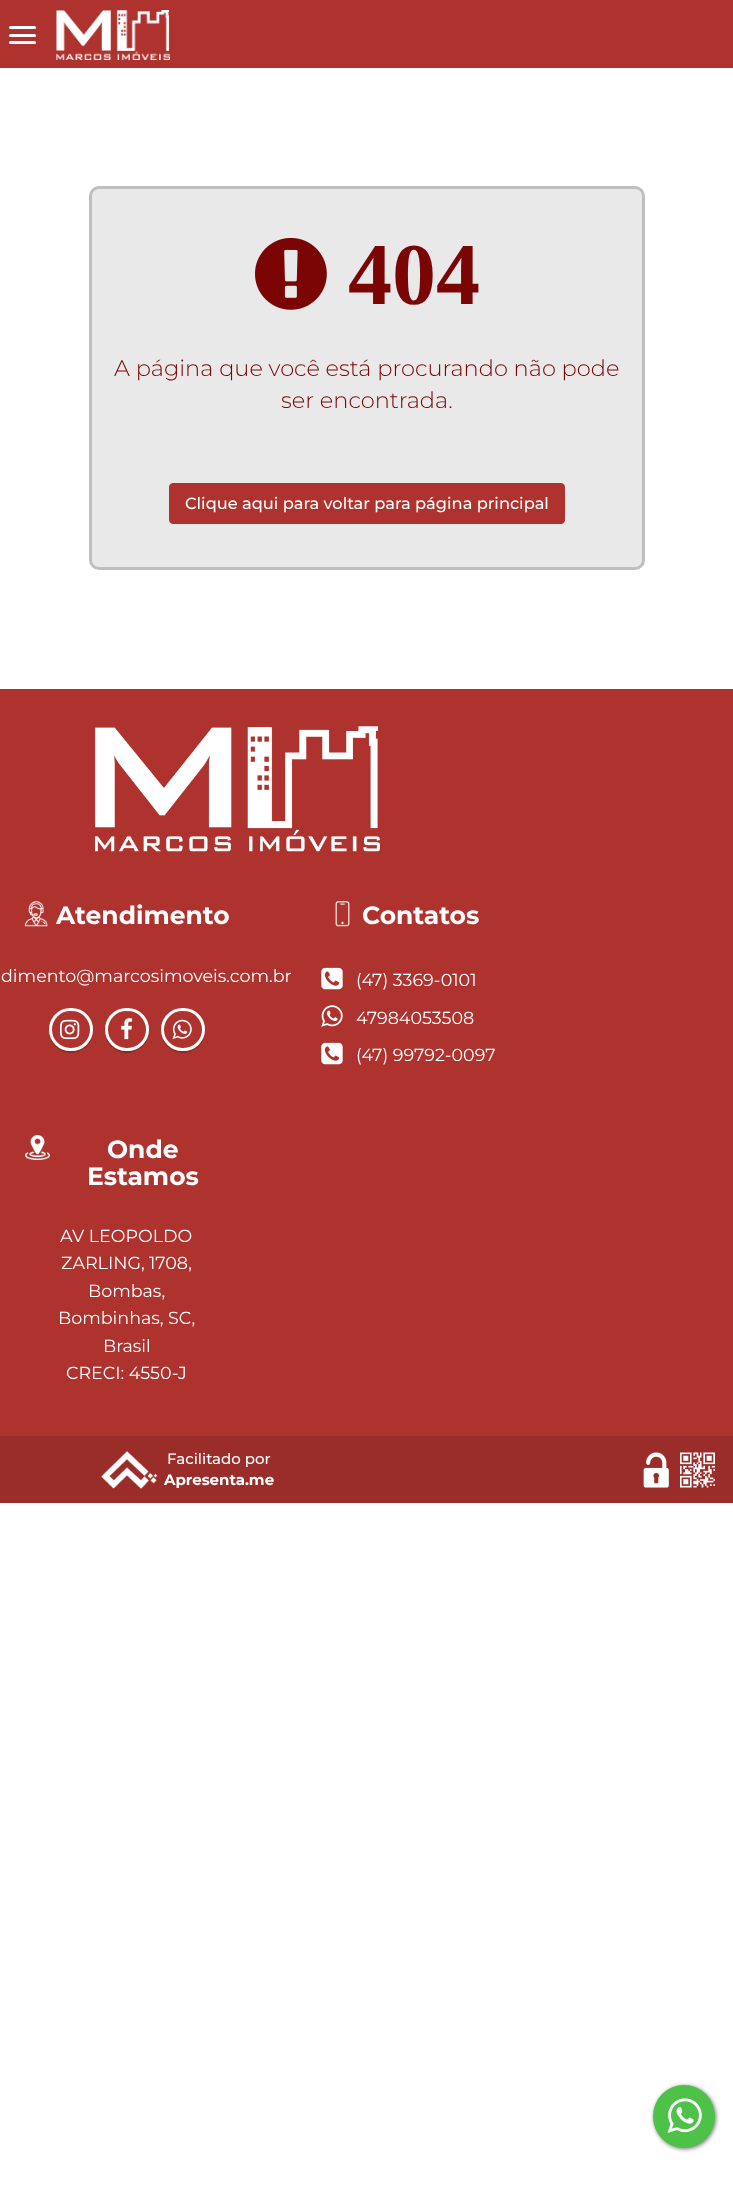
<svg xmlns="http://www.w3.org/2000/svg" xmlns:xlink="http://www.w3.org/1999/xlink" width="733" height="2209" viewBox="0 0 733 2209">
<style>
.cls-1{font:bold 88px Liberation Serif;fill:#7b0504}
.cls-2{font:300 22.5px Montserrat;fill:#7b0504}
.cls-3{font:500 16.25px Montserrat;fill:#ffffff}
.cls-4{font:bold 25px Montserrat;fill:#ffffff}
.cls-5{font:17.5px Montserrat;fill:#ffffff}
.cls-6{font:500 15px Montserrat;fill:#ffffff}
.cls-7{font:bold 15px Montserrat;fill:#ffffff}
</style>
<defs>
<clipPath id="clip1"><path d="M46 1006H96V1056H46ZM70.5 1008H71.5C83.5 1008 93 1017.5 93 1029.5C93 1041.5 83.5 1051 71.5 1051H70.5C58.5 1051 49 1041.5 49 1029.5C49 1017.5 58.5 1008 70.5 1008Z" clip-rule="evenodd"/></clipPath>
<clipPath id="clip2"><path d="M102 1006H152V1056H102ZM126.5 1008H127.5C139.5 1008 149 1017.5 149 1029.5C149 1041.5 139.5 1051 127.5 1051H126.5C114.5 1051 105 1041.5 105 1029.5C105 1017.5 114.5 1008 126.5 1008Z" clip-rule="evenodd"/></clipPath>
<clipPath id="clip3"><path d="M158 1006H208V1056H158ZM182.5 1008H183.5C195.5 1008 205 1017.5 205 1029.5C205 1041.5 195.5 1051 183.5 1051H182.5C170.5 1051 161 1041.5 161 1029.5C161 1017.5 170.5 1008 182.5 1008Z" clip-rule="evenodd"/></clipPath>
</defs>
<rect width="100%" height="100%" fill="#ffffff"/>
<rect fill="#ae332e" x="0" y="0" width="733" height="68"/>
<rect fill="#ffffff" x="9" y="26" width="27" height="3" rx="1.5"/>
<rect fill="#ffffff" x="9" y="34" width="27" height="3" rx="1.5"/>
<rect fill="#ffffff" x="9" y="41" width="27" height="3" rx="1.5"/>
<image xlink:href="image0.png" x="56" y="10" width="114" height="50"/>
<rect fill="#eae9e9" stroke="#bfbfbf" stroke-width="3" x="90.5" y="187.5" width="553" height="381" rx="8.5"/>
<image xlink:href="image1.png" x="255" y="237" width="72" height="73"/>
<rect fill="#ae332e" stroke="#ae332e" x="169.5" y="483.5" width="395" height="40" rx="3.5"/>
<rect fill="#000000" fill-opacity="0.53" filter="blur(2px)" x="654" y="2086" width="62" height="63" rx="31"/>
<rect fill="#4ec248" x="653" y="2085" width="62" height="63" rx="31"/>
<image xlink:href="image2.png" x="667" y="2098" width="35" height="35"/>
<rect fill="#ae332e" x="0" y="689" width="733" height="747"/>
<image xlink:href="image3.png" x="95" y="726" width="285" height="126"/>
<image xlink:href="image4.png" x="24" y="901" width="24" height="26"/>
<g clip-path="url(#clip1)">
<rect fill="#000000" fill-opacity="0.2" filter="blur(0.5px)" x="49" y="1009" width="44" height="44" rx="22"/>
</g>
<rect fill="none" stroke="#ffffff" stroke-width="3" x="50.5" y="1009.5" width="41" height="40" rx="20"/>
<image xlink:href="image5.png" x="60" y="1019" width="20" height="21"/>
<g clip-path="url(#clip2)">
<rect fill="#000000" fill-opacity="0.2" filter="blur(0.5px)" x="105" y="1009" width="44" height="44" rx="22"/>
</g>
<rect fill="none" stroke="#ffffff" stroke-width="3" x="106.5" y="1009.5" width="41" height="40" rx="20"/>
<image xlink:href="image6.png" x="121" y="1018" width="12" height="22"/>
<g clip-path="url(#clip3)">
<rect fill="#000000" fill-opacity="0.2" filter="blur(0.5px)" x="161" y="1009" width="44" height="44" rx="22"/>
</g>
<rect fill="none" stroke="#ffffff" stroke-width="3" x="162.5" y="1009.5" width="41" height="40" rx="20"/>
<image xlink:href="image7.png" x="172" y="1019" width="20" height="21"/>
<image xlink:href="image8.png" x="335" y="901" width="15" height="26"/>
<image xlink:href="image9.png" x="321" y="967" width="22" height="23"/>
<image xlink:href="image10.png" x="321" y="1005" width="22" height="22"/>
<image xlink:href="image9.png" x="321" y="1042" width="22" height="23"/>
<image xlink:href="image11.png" x="25" y="1135" width="25" height="25"/>
<rect fill="#9a2d29" x="0" y="1436" width="733" height="67"/>
<image xlink:href="image12.png" x="101" y="1451" width="57" height="38"/>
<image xlink:href="image13.png" x="643" y="1452" width="26" height="36"/>
<image xlink:href="image14.png" x="680" y="1452" width="35" height="36"/>
<text class="cls-1" x="348" y="304">404</text>
<text class="cls-2" x="114" y="376">A página que você está procurando não pode</text>
<text class="cls-2" x="281" y="408">ser encontrada.</text>
<text class="cls-3" x="185" y="509">Clique aqui para voltar para página principal</text>
<text class="cls-4" x="56" y="924">Atendimento</text>
<text class="cls-5" x="1" y="982">dimento@marcosimoveis.com.br</text>
<text class="cls-4" x="362" y="924">Contatos</text>
<text class="cls-5" x="356" y="986">(47) 3369-0101</text>
<text class="cls-5" x="356" y="1024">47984053508</text>
<text class="cls-5" x="356" y="1061">(47) 99792-0097</text>
<text class="cls-4" x="107" y="1158">Onde</text>
<text class="cls-4" x="87" y="1185">Estamos</text>
<text class="cls-5" x="60" y="1242">AV LEOPOLDO</text>
<text class="cls-5" x="61" y="1269">ZARLING,</text>
<text class="cls-5" x="149" y="1269">1708,</text>
<text class="cls-5" x="88" y="1297">Bombas,</text>
<text class="cls-5" x="58" y="1324">Bombinhas,</text>
<text class="cls-5" x="168" y="1324">SC,</text>
<text class="cls-5" x="103" y="1352">Brasil</text>
<text class="cls-5" x="66" y="1379">CRECI: 4550-J</text>
<text class="cls-6" x="167" y="1464">Facilitado por</text>
<text class="cls-7" x="164" y="1485">Apresenta.me</text>
</svg>
